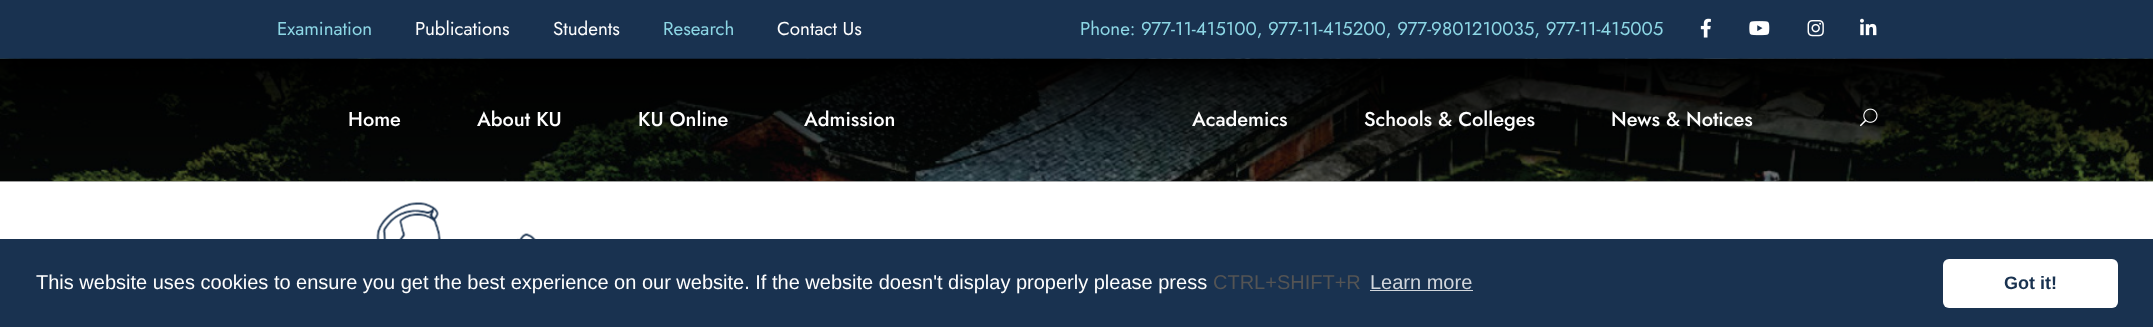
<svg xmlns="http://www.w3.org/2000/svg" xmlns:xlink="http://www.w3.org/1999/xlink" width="2153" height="327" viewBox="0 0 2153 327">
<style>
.cls-1{font:18.75px Jost;fill:#8dd7e5}
.cls-2{font:18.75px Jost;fill:#fefefe}
.cls-3{font:500 20px Jost;fill:#fefefe}
.cls-4{font:20px Liberation Sans;fill:#fefefe}
.cls-5{font:20px Liberation Sans;fill:#545454}
.cls-6{font:20px Liberation Sans;fill:#d1d6dc}
.cls-7{font:bold 18px Liberation Sans;fill:#193250}
</style>
<rect width="100%" height="100%" fill="#ffffff"/>
<rect fill="#193250" x="0" y="0" width="2153" height="59"/>
<image xlink:href="image0.png" x="1700" y="18" width="11" height="20"/>
<image xlink:href="image1.png" x="1749" y="21" width="21" height="15"/>
<image xlink:href="image2.png" x="1807" y="20" width="17" height="17"/>
<image xlink:href="image3.png" x="1860" y="18" width="17" height="18"/>
<image xlink:href="image4.png" x="0" y="58" width="2153" height="124"/>
<image xlink:href="image5.png" x="1860" y="108" width="18" height="19"/>
<image xlink:href="image6.png" x="376" y="202" width="160" height="37"/>
<rect fill="#193250" x="0" y="239" width="2153" height="88"/>
<rect fill="#d1d6dc" x="1370" y="290" width="103" height="1"/>
<rect fill="#ffffff" x="1943" y="259" width="175" height="49" rx="6"/>
<text class="cls-1" x="277" y="35">Examination</text>
<text class="cls-2" x="415" y="35">Publications</text>
<text class="cls-2" x="553" y="35">Students</text>
<text class="cls-1" x="663" y="35">Research</text>
<text class="cls-2" x="777" y="35">Contact Us</text>
<text class="cls-1" x="1080" y="35">Phone: 977-11-415100, 977-11-415200, 977-9801210035, 977-11-415005</text>
<text class="cls-3" x="348" y="126">Home</text>
<text class="cls-3" x="477" y="126">About KU</text>
<text class="cls-3" x="638" y="126">KU Online</text>
<text class="cls-3" x="804" y="126">Admission</text>
<text class="cls-3" x="1192" y="126">Academics</text>
<text class="cls-3" x="1364" y="126">Schools &amp; Colleges</text>
<text class="cls-3" x="1611" y="126">News &amp; Notices</text>
<text class="cls-4" x="36" y="289">This website uses cookies to ensure you get the best experience on our website. If the website doesn't display properly please press</text>
<text class="cls-5" x="1213" y="289">CTRL+SHIFT+R</text>
<text class="cls-6" x="1370" y="289">Learn more</text>
<text class="cls-7" x="2004" y="289">Got it!</text>
</svg>
